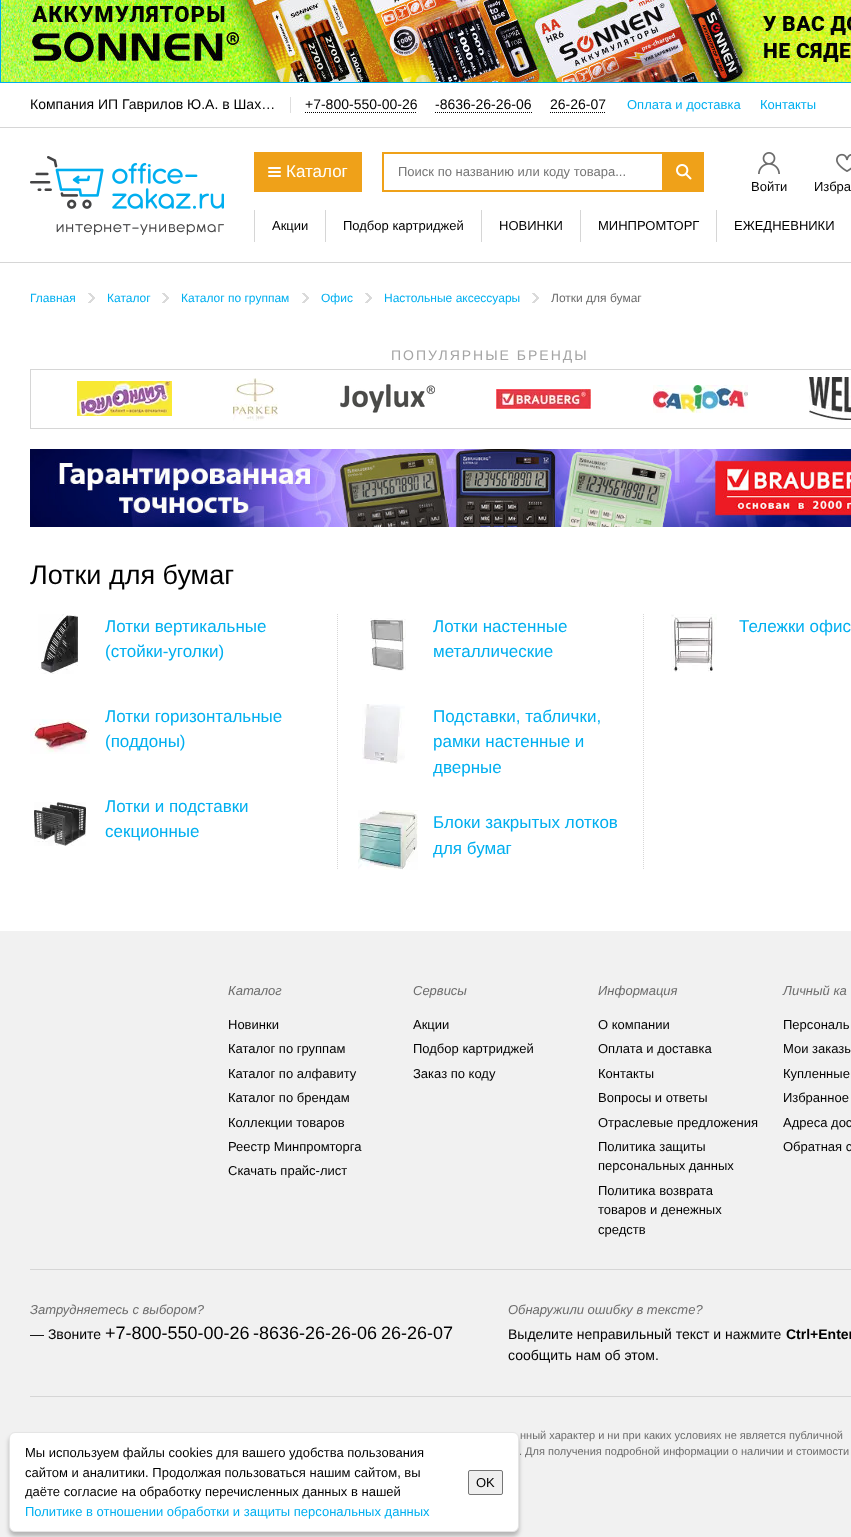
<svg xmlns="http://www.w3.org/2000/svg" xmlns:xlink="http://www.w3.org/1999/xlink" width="851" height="1537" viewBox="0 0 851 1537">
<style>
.cls-1{font:14px Liberation Sans;fill:#000000}
.cls-2{font:13px Liberation Sans;fill:#00aff0}
.cls-3{font:17px Liberation Sans;fill:#ffffff}
.cls-4{font:13px Liberation Sans;fill:#757575}
.cls-5{font:13px Liberation Sans;fill:#000000}
.cls-6{font:12px Liberation Sans;fill:#00aff0}
.cls-7{font:12px Liberation Sans;fill:#6c6c6c}
.cls-8{font:14px Liberation Sans;letter-spacing:2px;fill:#a4a4a4}
.cls-9{font:27px Liberation Sans;fill:#000000}
.cls-10{font:17px Liberation Sans;fill:#00aff0}
.cls-11{font:italic 13px Liberation Sans;fill:#6c6c6c}
.cls-12{font:18px Liberation Sans;fill:#000000}
.cls-13{font:bold 14px Liberation Sans;fill:#000000}
.cls-14{font:11px Liberation Sans;fill:#6c6c6c}
</style>
<rect width="100%" height="100%" fill="#ffffff"/>
<image xlink:href="image0.png" x="1" y="0" width="850" height="82"/>
<rect fill="none" stroke="#00aff0" x="0.5" y="-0.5" width="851" height="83"/>
<rect fill="#d6d6d6" x="0" y="127" width="851" height="1"/>
<rect fill="#dedede" x="290" y="97" width="1" height="16"/>
<path fill="none" stroke="#000000" stroke-dasharray="1 1" d="M305 112.5H417"/>
<path fill="none" stroke="#000000" stroke-dasharray="1 1" d="M435 112.5H532"/>
<path fill="none" stroke="#000000" stroke-dasharray="1 1" d="M550 112.5H606"/>
<rect fill="#d6d6d6" x="0" y="262" width="851" height="1"/>
<image xlink:href="image1.png" x="30" y="156" width="194" height="79"/>
<rect fill="#efa119" x="254" y="152" width="108" height="40"/>
<rect fill="#ffffff" x="268" y="171" width="13" height="2" rx="1"/>
<rect fill="#ffffff" x="268" y="167" width="13" height="2" rx="1"/>
<rect fill="#ffffff" x="268" y="175" width="13" height="2" rx="1"/>
<rect fill="none" stroke="#efa119" stroke-width="2" x="383" y="153" width="320" height="38"/>
<rect fill="#efa119" x="662" y="154" width="40" height="36"/>
<image xlink:href="image2.png" x="676" y="164" width="16" height="16"/>
<image xlink:href="image3.png" x="758" y="152" width="22" height="22"/>
<image xlink:href="image4.png" x="836" y="153" width="15" height="19"/>
<rect fill="#d6d6d6" x="325" y="210" width="1" height="32"/>
<rect fill="#d6d6d6" x="254" y="210" width="1" height="32"/>
<rect fill="#d6d6d6" x="481" y="210" width="1" height="32"/>
<rect fill="#d6d6d6" x="580" y="210" width="1" height="32"/>
<rect fill="#d6d6d6" x="716" y="210" width="1" height="32"/>
<image xlink:href="image5.png" x="88" y="293" width="7" height="10"/>
<image xlink:href="image5.png" x="162" y="293" width="7" height="10"/>
<image xlink:href="image5.png" x="302" y="293" width="7" height="10"/>
<image xlink:href="image5.png" x="365" y="293" width="7" height="10"/>
<image xlink:href="image5.png" x="532" y="293" width="7" height="10"/>
<rect fill="none" stroke="#d6d6d6" x="30.5" y="369.5" width="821" height="59"/>
<image xlink:href="image6.png" x="77" y="381" width="95" height="35"/>
<image xlink:href="image7.png" x="233" y="378" width="45" height="43"/>
<image xlink:href="image8.png" x="340" y="384" width="95" height="29"/>
<image xlink:href="image9.png" x="496" y="389" width="95" height="20"/>
<image xlink:href="image10.png" x="653" y="385" width="95" height="28"/>
<image xlink:href="image11.png" x="809" y="377" width="42" height="43"/>
<image xlink:href="image12.png" x="30" y="449" width="821" height="78"/>
<image xlink:href="image13.png" x="38" y="614" width="40" height="60"/>
<image xlink:href="image14.png" x="30" y="719" width="60" height="35"/>
<image xlink:href="image15.png" x="34" y="802" width="52" height="44"/>
<path fill="none" stroke="#d6d6d6" stroke-dasharray="1 1" d="M337.5 614V870"/>
<image xlink:href="image16.png" x="370" y="618" width="36" height="53"/>
<image xlink:href="image17.png" x="362" y="704" width="43" height="60"/>
<image xlink:href="image18.png" x="358" y="810" width="60" height="60"/>
<path fill="none" stroke="#d6d6d6" stroke-dasharray="1 1" d="M643.5 614V870"/>
<image xlink:href="image19.png" x="671" y="614" width="46" height="59"/>
<rect fill="#f1f1f1" x="0" y="931" width="851" height="606"/>
<rect fill="#d6d6d6" x="30" y="1269" width="821" height="1"/>
<rect fill="#d6d6d6" x="30" y="1396" width="821" height="1"/>
<rect fill="#000000" fill-opacity="0.25" filter="blur(2px)" x="9" y="1436" width="510" height="100" rx="6"/>
<rect fill="#ffffff" stroke="#e5e5e5" x="9.5" y="1432.5" width="509" height="99" rx="5.5"/>
<rect fill="#efefef" stroke="#767676" x="468.5" y="1470.5" width="34" height="24" rx="1.5"/>
<text class="cls-1" x="30" y="109">Компания ИП Гаврилов Ю.А. в Шах…</text>
<text class="cls-1" x="305" y="109">+7-800-550-00-26</text>
<text class="cls-1" x="435" y="109">-8636-26-26-06</text>
<text class="cls-1" x="550" y="109">26-26-07</text>
<text class="cls-2" x="627" y="109">Оплата и доставка</text>
<text class="cls-2" x="760" y="109">Контакты</text>
<text class="cls-3" x="286" y="177">Каталог</text>
<text class="cls-4" x="398" y="176">Поиск по названию или коду товара...</text>
<text class="cls-5" x="751" y="191">Войти</text>
<text class="cls-5" x="814" y="191">Избра</text>
<text class="cls-5" x="272" y="230">Акции</text>
<text class="cls-5" x="343" y="230">Подбор картриджей</text>
<text class="cls-5" x="499" y="230">НОВИНКИ</text>
<text class="cls-5" x="598" y="230">МИНПРОМТОРГ</text>
<text class="cls-5" x="734" y="230">ЕЖЕДНЕВНИКИ</text>
<text class="cls-6" x="30" y="302">Главная</text>
<text class="cls-6" x="107" y="302">Каталог</text>
<text class="cls-6" x="181" y="302">Каталог по группам</text>
<text class="cls-6" x="321" y="302">Офис</text>
<text class="cls-6" x="384" y="302">Настольные аксессуары</text>
<text class="cls-7" x="551" y="302">Лотки для бумаг</text>
<text class="cls-8" x="391" y="360">ПОПУЛЯРНЫЕ БРЕНДЫ</text>
<text class="cls-9" x="30" y="584">Лотки для бумаг</text>
<text class="cls-10"><tspan x="105" y="632">Лотки вертикальные</tspan><tspan x="105" y="657">(стойки-уголки)</tspan></text>
<text class="cls-10"><tspan x="105" y="722">Лотки горизонтальные</tspan><tspan x="105" y="747">(поддоны)</tspan></text>
<text class="cls-10"><tspan x="105" y="812">Лотки и подставки</tspan><tspan x="105" y="837">секционные</tspan></text>
<text class="cls-10"><tspan x="433" y="632">Лотки настенные</tspan><tspan x="433" y="657">металлические</tspan></text>
<text class="cls-10"><tspan x="433" y="722">Подставки, таблички,</tspan><tspan x="433" y="747">рамки настенные и</tspan><tspan x="433" y="773">дверные</tspan></text>
<text class="cls-10"><tspan x="433" y="828">Блоки закрытых лотков</tspan><tspan x="433" y="854">для бумаг</tspan></text>
<text class="cls-10" x="739" y="632">Тележки офис</text>
<text class="cls-11" x="228" y="995">Каталог</text>
<text class="cls-5"><tspan x="228" y="1029">Новинки</tspan><tspan x="228" y="1053">Каталог по группам</tspan><tspan x="228" y="1078">Каталог по алфавиту</tspan><tspan x="228" y="1102">Каталог по брендам</tspan><tspan x="228" y="1127">Коллекции товаров</tspan><tspan x="228" y="1151">Реестр Минпромторга</tspan><tspan x="228" y="1175">Скачать прайс-лист</tspan></text>
<text class="cls-11" x="413" y="995">Сервисы</text>
<text class="cls-5"><tspan x="413" y="1029">Акции</tspan><tspan x="413" y="1053">Подбор картриджей</tspan><tspan x="413" y="1078">Заказ по коду</tspan></text>
<text class="cls-11" x="598" y="995">Информация</text>
<text class="cls-5"><tspan x="598" y="1029">О компании</tspan><tspan x="598" y="1053">Оплата и доставка</tspan><tspan x="598" y="1078">Контакты</tspan><tspan x="598" y="1102">Вопросы и ответы</tspan><tspan x="598" y="1127">Отраслевые предложения</tspan><tspan x="598" y="1151">Политика защиты</tspan><tspan x="598" y="1170">персональных данных</tspan><tspan x="598" y="1195">Политика возврата</tspan><tspan x="598" y="1214">товаров и денежных</tspan><tspan x="598" y="1234">средств</tspan></text>
<text class="cls-11" x="783" y="995">Личный ка</text>
<text class="cls-5"><tspan x="783" y="1029">Персональ</tspan><tspan x="783" y="1053">Мои заказы</tspan><tspan x="783" y="1078">Купленные</tspan><tspan x="783" y="1102">Избранное</tspan><tspan x="783" y="1127">Адреса дос</tspan><tspan x="783" y="1151">Обратная с</tspan></text>
<text class="cls-11" x="30" y="1314">Затрудняетесь с выбором?</text>
<text class="cls-1" x="30" y="1339">— Звоните</text>
<text class="cls-12" x="105" y="1339">+7-800-550-00-26</text>
<text class="cls-12" x="253" y="1339">-8636-26-26-06</text>
<text class="cls-12" x="381" y="1339">26-26-07</text>
<text class="cls-11" x="508" y="1314">Обнаружили ошибку в тексте?</text>
<text class="cls-1" x="508" y="1339">Выделите неправильный текст и нажмите</text>
<text class="cls-13" x="786" y="1339">Ctrl+Enter</text>
<text class="cls-1" x="508" y="1360">сообщить нам об этом.</text>
<text class="cls-14" x="520" y="1439">нный характер и ни при каких условиях не является публичной</text>
<text class="cls-14" x="519" y="1455">. Для получения подробной информации о наличии и стоимости</text>
<text class="cls-5"><tspan x="25" y="1457">Мы используем файлы cookies для вашего удобства пользования</tspan><tspan x="25" y="1477">сайтом и аналитики. Продолжая пользоваться нашим сайтом, вы</tspan><tspan x="25" y="1496">даёте согласие на обработку перечисленных данных в нашей</tspan></text>
<text class="cls-2" x="25" y="1516">Политике в отношении обработки и защиты персональных данных</text>
<text class="cls-5" x="476" y="1487">OK</text>
</svg>
